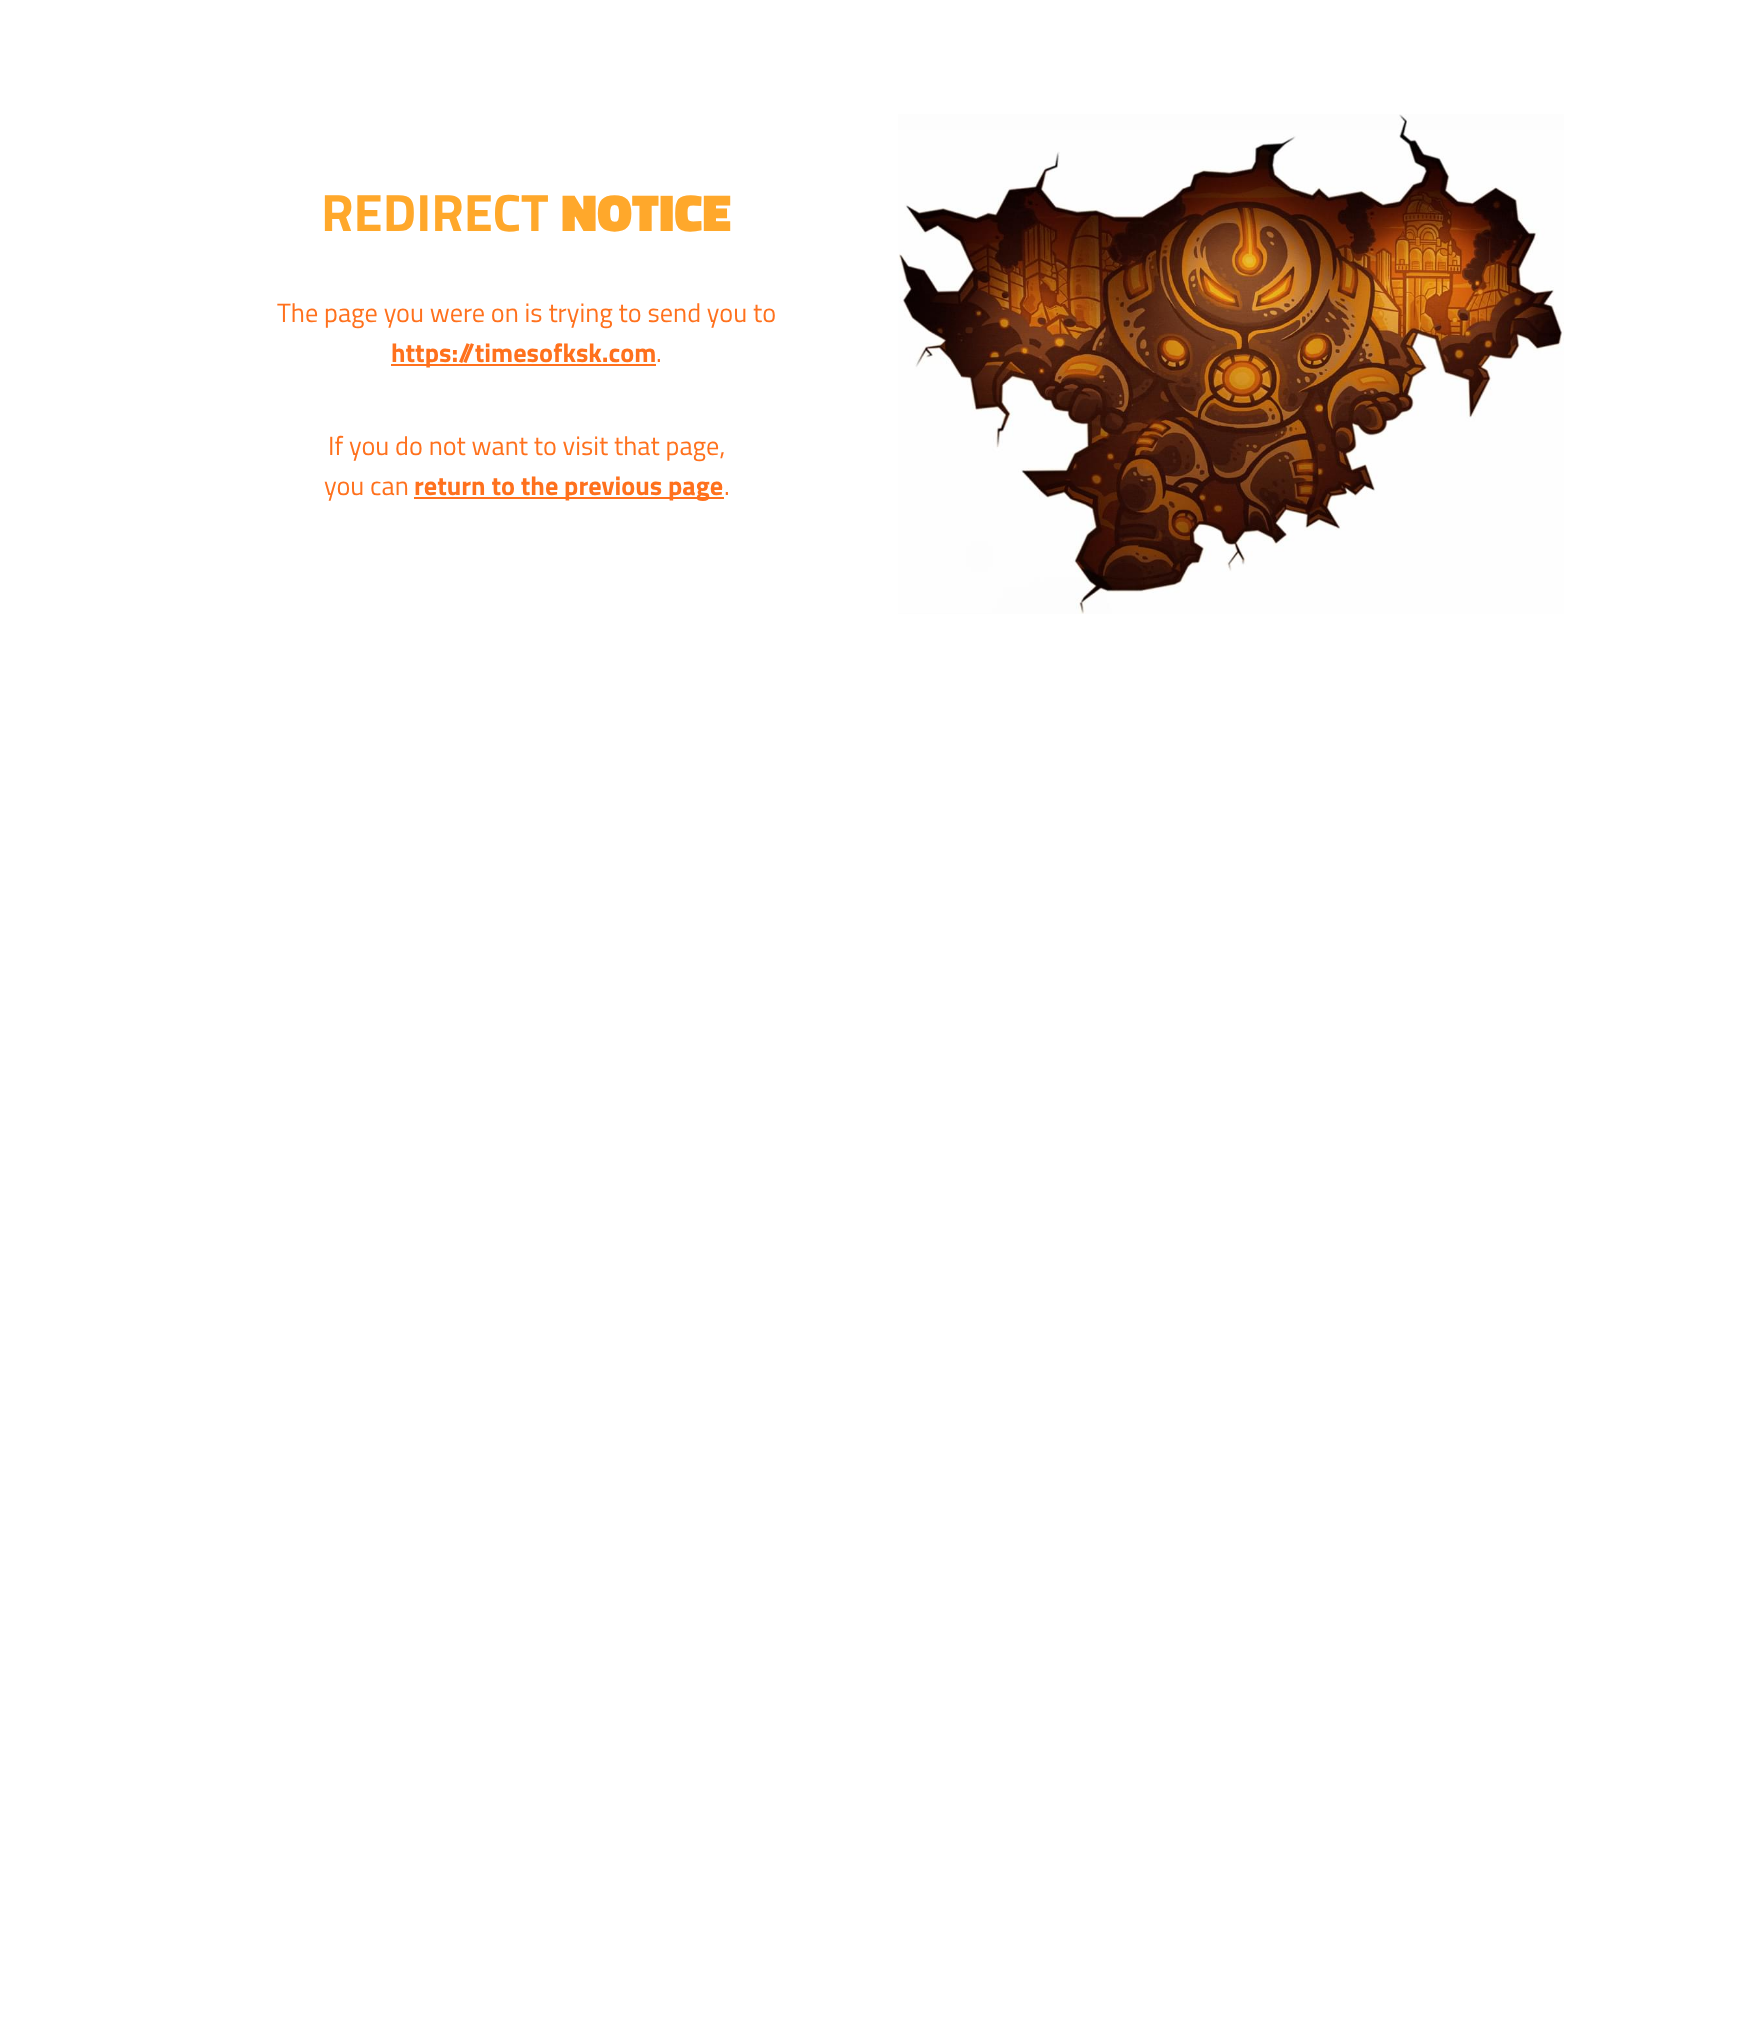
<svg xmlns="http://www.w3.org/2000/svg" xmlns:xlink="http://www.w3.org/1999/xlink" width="1755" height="2025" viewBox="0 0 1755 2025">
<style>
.cls-1{font:bold 52.5px Titillium Web;fill:#ffa82b}
.cls-2{font:900 52.5px Titillium Web;fill:#ffa82b}
.cls-3{font:26.3px Titillium Web;fill:#ff711d}
.cls-4{font:bold 26.3px Titillium Web;fill:#ff711d}
</style>
<rect width="100%" height="100%" fill="#ffffff"/>
<rect fill="#ff711d" x="391" y="364" width="265" height="2"/>
<rect fill="#ff711d" x="414" y="497" width="310" height="2"/>
<image xlink:href="image0.png" x="898" y="114" width="666" height="500"/>
<text class="cls-1" x="321" y="231">REDIRECT</text>
<text class="cls-2" x="561" y="231">NOTICE</text>
<text class="cls-3" x="277" y="322">The page you were on is trying to send you to</text>
<text class="cls-4" x="391" y="362">https://timesofksk.com</text>
<text class="cls-3" x="656" y="362">.</text>
<text class="cls-3" x="328" y="455">If you do not want to visit that page,</text>
<text class="cls-3" x="324" y="495">you can</text>
<text class="cls-4" x="414" y="495">return to the previous page</text>
<text class="cls-3" x="724" y="495">.</text>
</svg>
